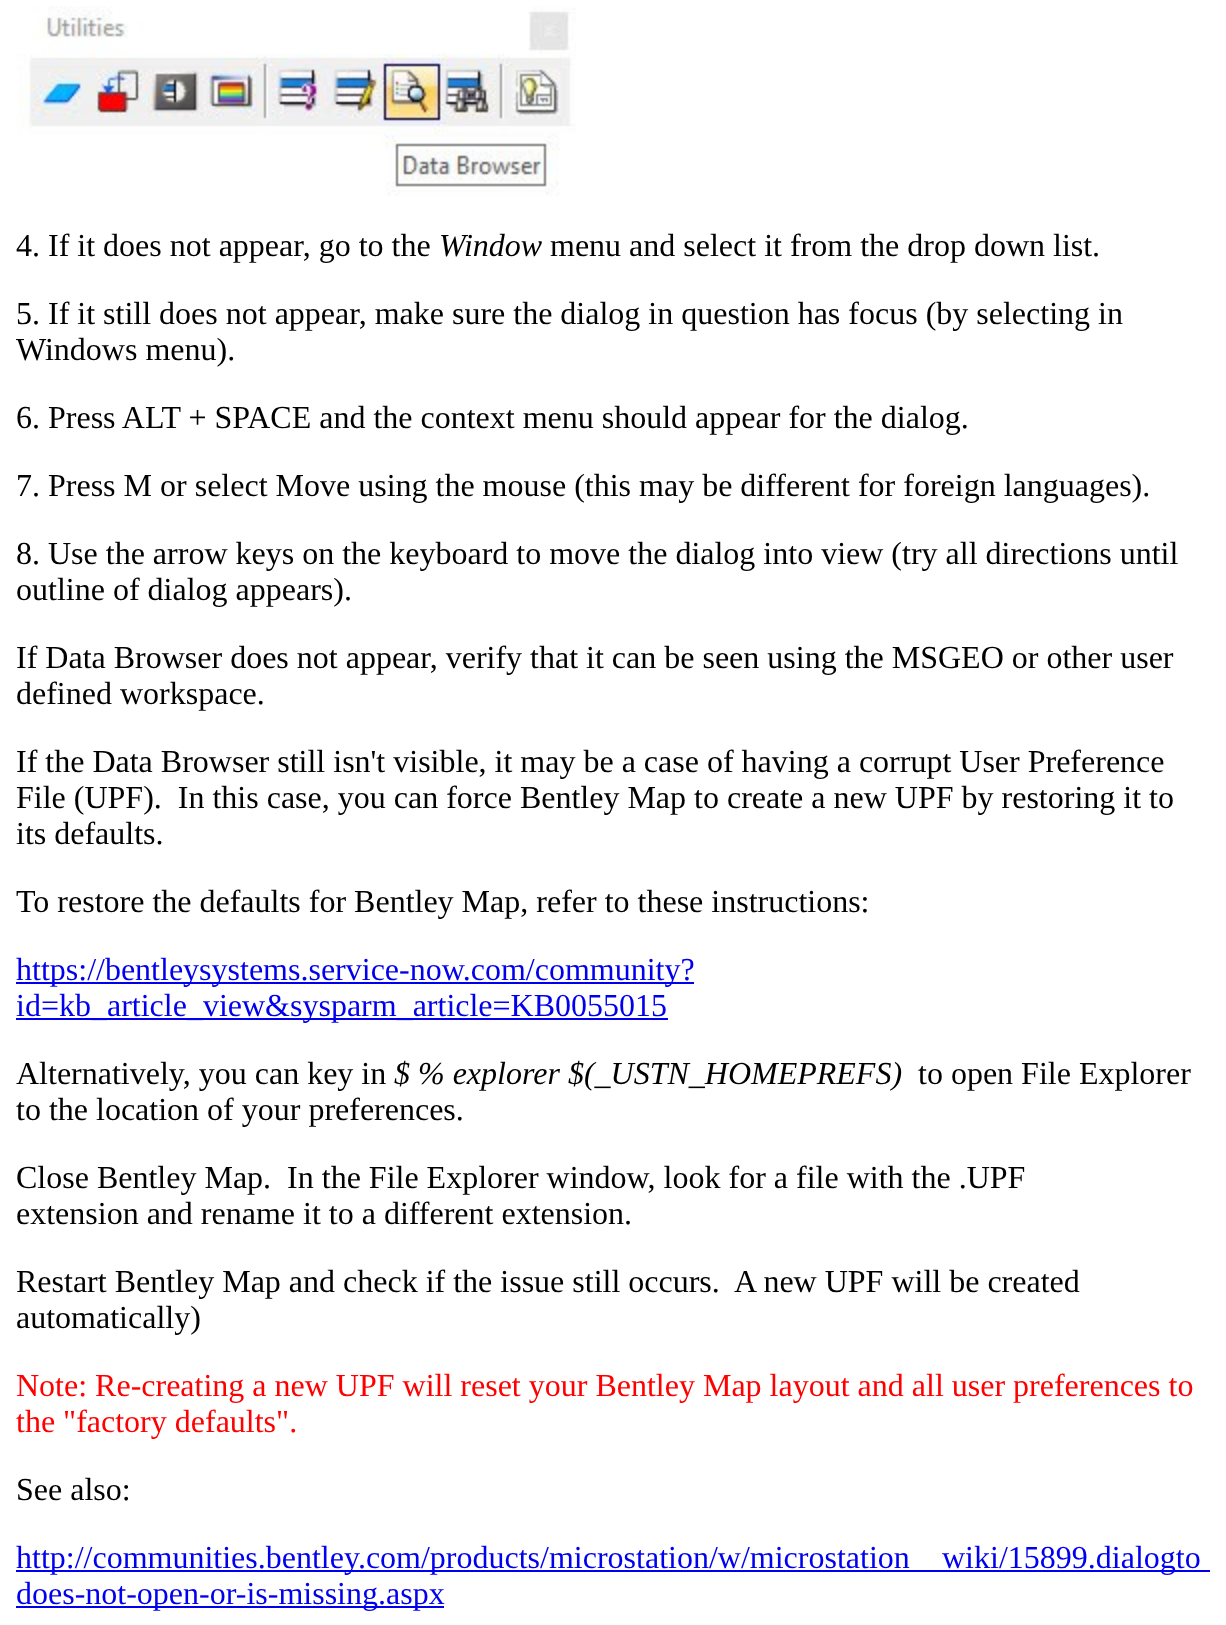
<svg xmlns="http://www.w3.org/2000/svg" xmlns:xlink="http://www.w3.org/1999/xlink" width="1226" height="1625" viewBox="0 0 1226 1625">
<style>
.cls-1{font:32px Liberation Serif;fill:#000000}
.cls-2{font:italic 32px Liberation Serif;fill:#000000}
.cls-3{font:32px Liberation Serif;fill:#0000ee}
.cls-4{font:32px Liberation Serif;fill:#ff0000}
</style>
<rect width="100%" height="100%" fill="#ffffff"/>
<image xlink:href="image0.png" x="16" y="6" width="560" height="190"/>
<rect fill="#0000ee" x="16" y="982" width="678" height="2"/>
<rect fill="#0000ee" x="16" y="1018" width="652" height="2"/>
<rect fill="#0000ee" x="16" y="1570" width="1194" height="2"/>
<rect fill="#0000ee" x="16" y="1606" width="428" height="2"/>
<text class="cls-1" x="16" y="256">4. If it does not appear, go to the</text>
<text class="cls-2" x="439" y="256">Window</text>
<text class="cls-1" x="550" y="256">menu and select it from the drop down list.</text>
<text class="cls-1"><tspan x="16" y="324">5. If it still does not appear, make sure the dialog in question has focus (by selecting in</tspan><tspan x="16" y="360">Windows menu).</tspan></text>
<text class="cls-1" x="16" y="428">6. Press ALT + SPACE and the context menu should appear for the dialog.</text>
<text class="cls-1" x="16" y="496">7. Press M or select Move using the mouse (this may be different for foreign languages).</text>
<text class="cls-1"><tspan x="16" y="564">8. Use the arrow keys on the keyboard to move the dialog into view (try all directions until</tspan><tspan x="16" y="600">outline of dialog appears).</tspan></text>
<text class="cls-1"><tspan x="16" y="668">If Data Browser does not appear, verify that it can be seen using the MSGEO or other user</tspan><tspan x="16" y="704">defined workspace.</tspan></text>
<text class="cls-1" xml:space="preserve"><tspan x="16" y="772">If the Data Browser still isn't visible, it may be a case of having a corrupt User Preference</tspan><tspan x="16" y="808">File (UPF).  In this case, you can force Bentley Map to create a new UPF by restoring it to</tspan><tspan x="16" y="844">its defaults.</tspan></text>
<text class="cls-1" x="16" y="912">To restore the defaults for Bentley Map, refer to these instructions:</text>
<text class="cls-3"><tspan x="16" y="980">https://bentleysystems.service-now.com/community?</tspan><tspan x="16" y="1016">id=kb_article_view&amp;sysparm_article=KB0055015</tspan></text>
<text class="cls-1" x="16" y="1084">Alternatively, you can key in</text>
<text class="cls-2" x="394" y="1084">$ % explorer $(_USTN_HOMEPREFS)</text>
<text class="cls-1" x="918" y="1084">to open File Explorer</text>
<text class="cls-1" x="16" y="1120">to the location of your preferences.</text>
<text class="cls-1" xml:space="preserve"><tspan x="16" y="1188">Close Bentley Map.  In the File Explorer window, look for a file with the .UPF</tspan><tspan x="16" y="1224">extension and rename it to a different extension.</tspan></text>
<text class="cls-1" xml:space="preserve"><tspan x="16" y="1292">Restart Bentley Map and check if the issue still occurs.  A new UPF will be created</tspan><tspan x="16" y="1328">automatically)</tspan></text>
<text class="cls-4"><tspan x="16" y="1396">Note: Re-creating a new UPF will reset your Bentley Map layout and all user preferences to</tspan><tspan x="16" y="1432">the "factory defaults".</tspan></text>
<text class="cls-1" x="16" y="1500">See also:</text>
<text class="cls-3" x="16" y="1568">http://communities.bentley.com/products/microstation/w/microstation</text>
<text class="cls-3" x="942" y="1568">wiki/15899.dialogto</text>
<text class="cls-3" x="16" y="1604">does-not-open-or-is-missing.aspx</text>
</svg>
